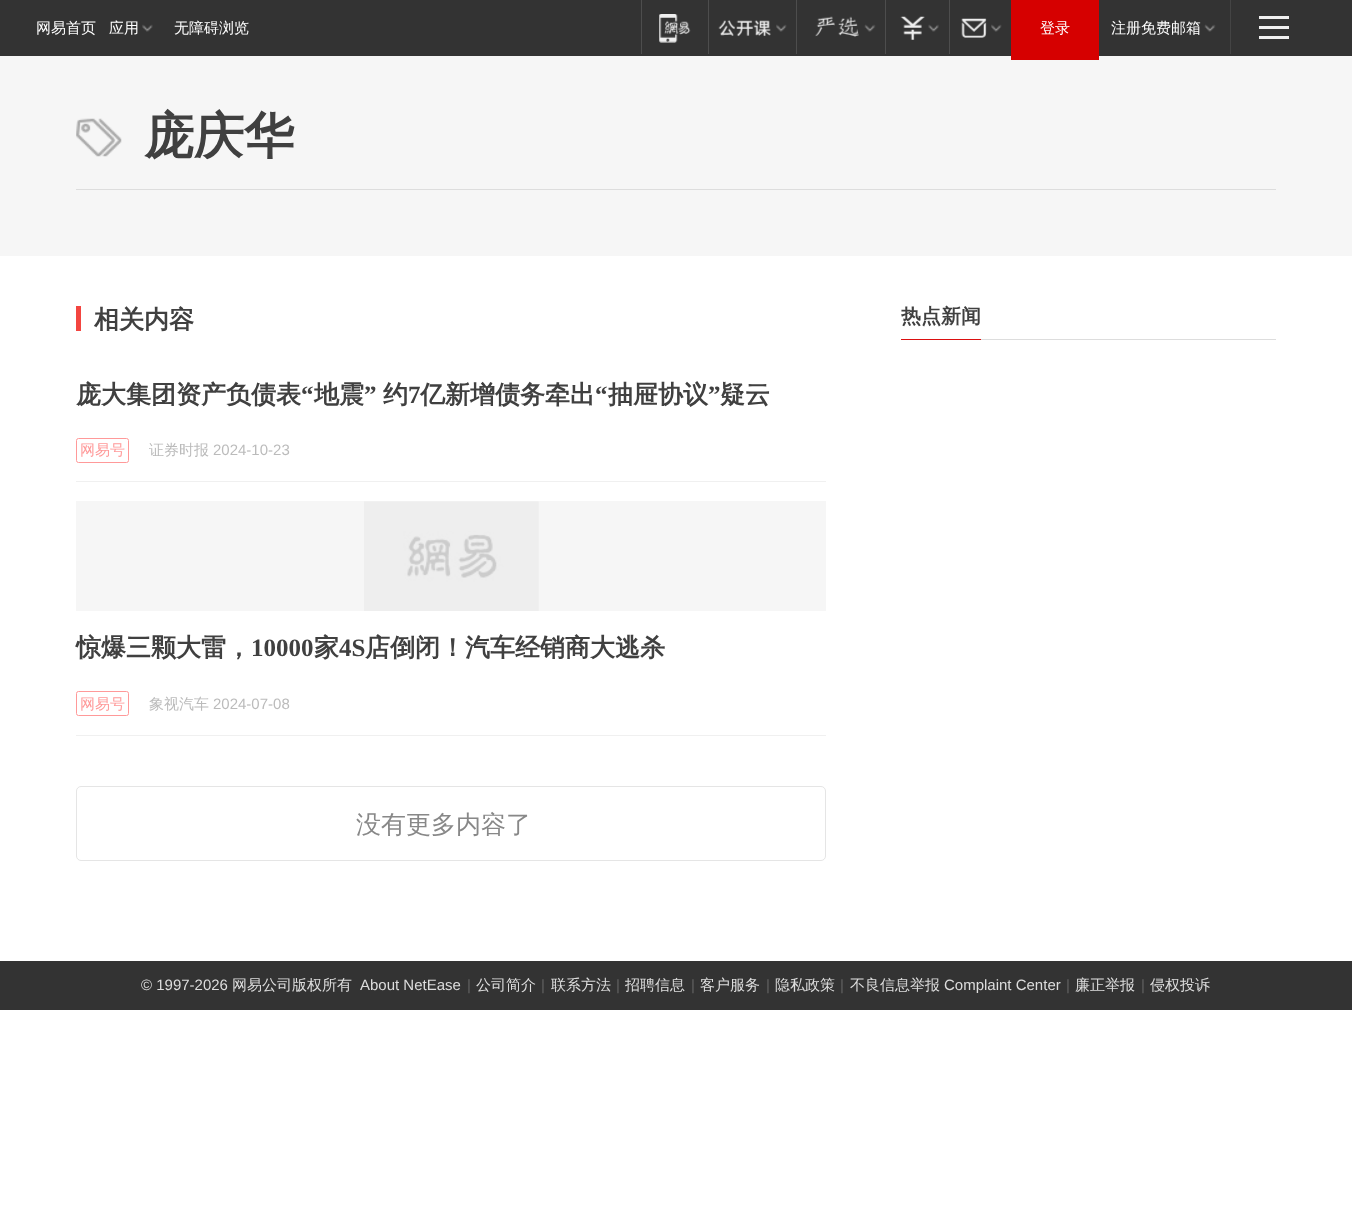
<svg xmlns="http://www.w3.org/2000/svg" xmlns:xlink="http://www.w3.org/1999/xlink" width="1352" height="1223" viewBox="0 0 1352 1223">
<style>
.cls-1{font:500 15px WenQuanYi Zen Hei;fill:#ffffff}
.cls-2{font:bold 50px WenQuanYi Zen Hei;fill:#404040}
.cls-3{font:bold 25px WenQuanYi Zen Hei;fill:#404040}
.cls-4{font:bold 25px Liberation Serif;fill:#404040}
.cls-5{font:500 15px WenQuanYi Zen Hei;fill:#ff9999}
.cls-6{font:500 15px WenQuanYi Zen Hei;fill:#bbbbbb}
.cls-7{font:15px Liberation Sans;fill:#bbbbbb}
.cls-8{font:500 25px WenQuanYi Zen Hei;fill:#888888}
.cls-9{font:bold 20px WenQuanYi Zen Hei;fill:#404040}
.cls-10{font:15px Liberation Sans;fill:#dddddd}
.cls-11{font:500 15px WenQuanYi Zen Hei;fill:#dddddd}
.cls-12{font:15px Liberation Sans;fill:#616161}
</style>
<rect width="100%" height="100%" fill="#ffffff"/>
<rect fill="#333333" x="0" y="0" width="1352" height="56"/>
<image xlink:href="image0.png" x="142" y="24" width="11" height="8"/>
<rect fill="#4d4d4d" x="641" y="0" width="1" height="54"/>
<image xlink:href="image1.png" x="659" y="14" width="32" height="29"/>
<rect fill="#4d4d4d" x="708" y="0" width="1" height="54"/>
<image xlink:href="image2.png" x="718" y="20" width="53" height="17"/>
<image xlink:href="image3.png" x="776" y="24" width="11" height="8"/>
<rect fill="#4d4d4d" x="796" y="0" width="1" height="54"/>
<image xlink:href="image4.png" x="815" y="16" width="44" height="21"/>
<image xlink:href="image5.png" x="864" y="24" width="12" height="8"/>
<rect fill="#4d4d4d" x="885" y="0" width="1" height="54"/>
<image xlink:href="image6.png" x="900" y="16" width="25" height="24"/>
<image xlink:href="image7.png" x="928" y="24" width="11" height="8"/>
<rect fill="#4d4d4d" x="949" y="0" width="1" height="54"/>
<image xlink:href="image8.png" x="961" y="18" width="26" height="20"/>
<image xlink:href="image9.png" x="991" y="24" width="11" height="8"/>
<rect fill="#f6f6f6" x="0" y="56" width="1352" height="200"/>
<rect fill="#d60000" x="1011" y="0" width="88" height="60"/>
<image xlink:href="image10.png" x="1204" y="24" width="12" height="8"/>
<rect fill="#444444" x="1230" y="0" width="1" height="54"/>
<rect fill="#efefef" x="1259" y="16" width="30" height="3"/>
<rect fill="#efefef" x="1259" y="26" width="30" height="3"/>
<rect fill="#efefef" x="1259" y="36" width="30" height="3"/>
<image xlink:href="image11.png" x="76" y="118" width="46" height="39"/>
<rect fill="#dddddd" x="76" y="189" width="1200" height="1"/>
<rect fill="#f34540" x="76" y="306" width="5" height="25"/>
<rect fill="#f0f0f0" x="76" y="481" width="750" height="1"/>
<rect fill="none" stroke="#ff9999" x="76.5" y="438.5" width="52" height="24" rx="2"/>
<rect fill="#f0f0f0" x="76" y="735" width="750" height="1"/>
<rect fill="#f6f6f6" x="76" y="501" width="750" height="110"/>
<image xlink:href="image12.png" x="364" y="501" width="175" height="110"/>
<rect fill="none" stroke="#ff9999" x="76.5" y="691.5" width="52" height="24" rx="2"/>
<rect fill="none" stroke="#e5e5e5" x="76.5" y="786.5" width="749" height="74" rx="4.5"/>
<rect fill="#dddddd" x="981" y="339" width="295" height="1"/>
<rect fill="#db1011" x="901" y="339" width="80" height="1"/>
<rect fill="#333333" x="0" y="961" width="1352" height="49"/>
<text class="cls-1" x="36" y="33">网易首页</text>
<text class="cls-1" x="109" y="33">应用</text>
<text class="cls-1" x="174" y="33">无障碍浏览</text>
<text class="cls-1" x="1040" y="33">登录</text>
<text class="cls-1" x="1111" y="33">注册免费邮箱</text>
<text class="cls-2" x="144" y="153">庞庆华</text>
<text class="cls-3" x="94" y="328">相关内容</text>
<text class="cls-3" x="76" y="403">庞大集团资产负债表</text>
<text class="cls-4" x="301" y="403">“</text>
<text class="cls-3" x="314" y="403">地震</text>
<text class="cls-4" x="364" y="403">”</text>
<text class="cls-3" x="383" y="403">约</text>
<text class="cls-4" x="408" y="403">7</text>
<text class="cls-3" x="420" y="403">亿新增债务牵出</text>
<text class="cls-4" x="595" y="403">“</text>
<text class="cls-3" x="608" y="403">抽屉协议</text>
<text class="cls-4" x="708" y="403">”</text>
<text class="cls-3" x="720" y="403">疑云</text>
<text class="cls-5" x="80" y="455">网易号</text>
<text class="cls-6" x="149" y="455">证券时报</text>
<text class="cls-7" x="213" y="455">2024-10-23</text>
<text class="cls-3" x="76" y="656">惊爆三颗大雷，</text>
<text class="cls-4" x="251" y="656">10000</text>
<text class="cls-3" x="314" y="656">家</text>
<text class="cls-4" x="339" y="656">4S</text>
<text class="cls-3" x="365" y="656">店倒闭！汽车经销商大逃杀</text>
<text class="cls-5" x="80" y="709">网易号</text>
<text class="cls-6" x="149" y="709">象视汽车</text>
<text class="cls-7" x="213" y="709">2024-07-08</text>
<text class="cls-8" x="356" y="833">没有更多内容了</text>
<text class="cls-9" x="901" y="323">热点新闻</text>
<text class="cls-10" x="141" y="990">© 1997-2026</text>
<text class="cls-11" x="232" y="990">网易公司版权所有</text>
<text class="cls-10" x="360" y="990">About NetEase</text>
<text class="cls-12" x="467" y="990">|</text>
<text class="cls-11" x="476" y="990">公司简介</text>
<text class="cls-12" x="541" y="990">|</text>
<text class="cls-11" x="551" y="990">联系方法</text>
<text class="cls-12" x="616" y="990">|</text>
<text class="cls-11" x="625" y="990">招聘信息</text>
<text class="cls-12" x="691" y="990">|</text>
<text class="cls-11" x="700" y="990">客户服务</text>
<text class="cls-12" x="766" y="990">|</text>
<text class="cls-11" x="775" y="990">隐私政策</text>
<text class="cls-12" x="840" y="990">|</text>
<text class="cls-11" x="850" y="990">不良信息举报</text>
<text class="cls-10" x="944" y="990">Complaint Center</text>
<text class="cls-12" x="1066" y="990">|</text>
<text class="cls-11" x="1075" y="990">廉正举报</text>
<text class="cls-12" x="1141" y="990">|</text>
<text class="cls-11" x="1150" y="990">侵权投诉</text>
</svg>
